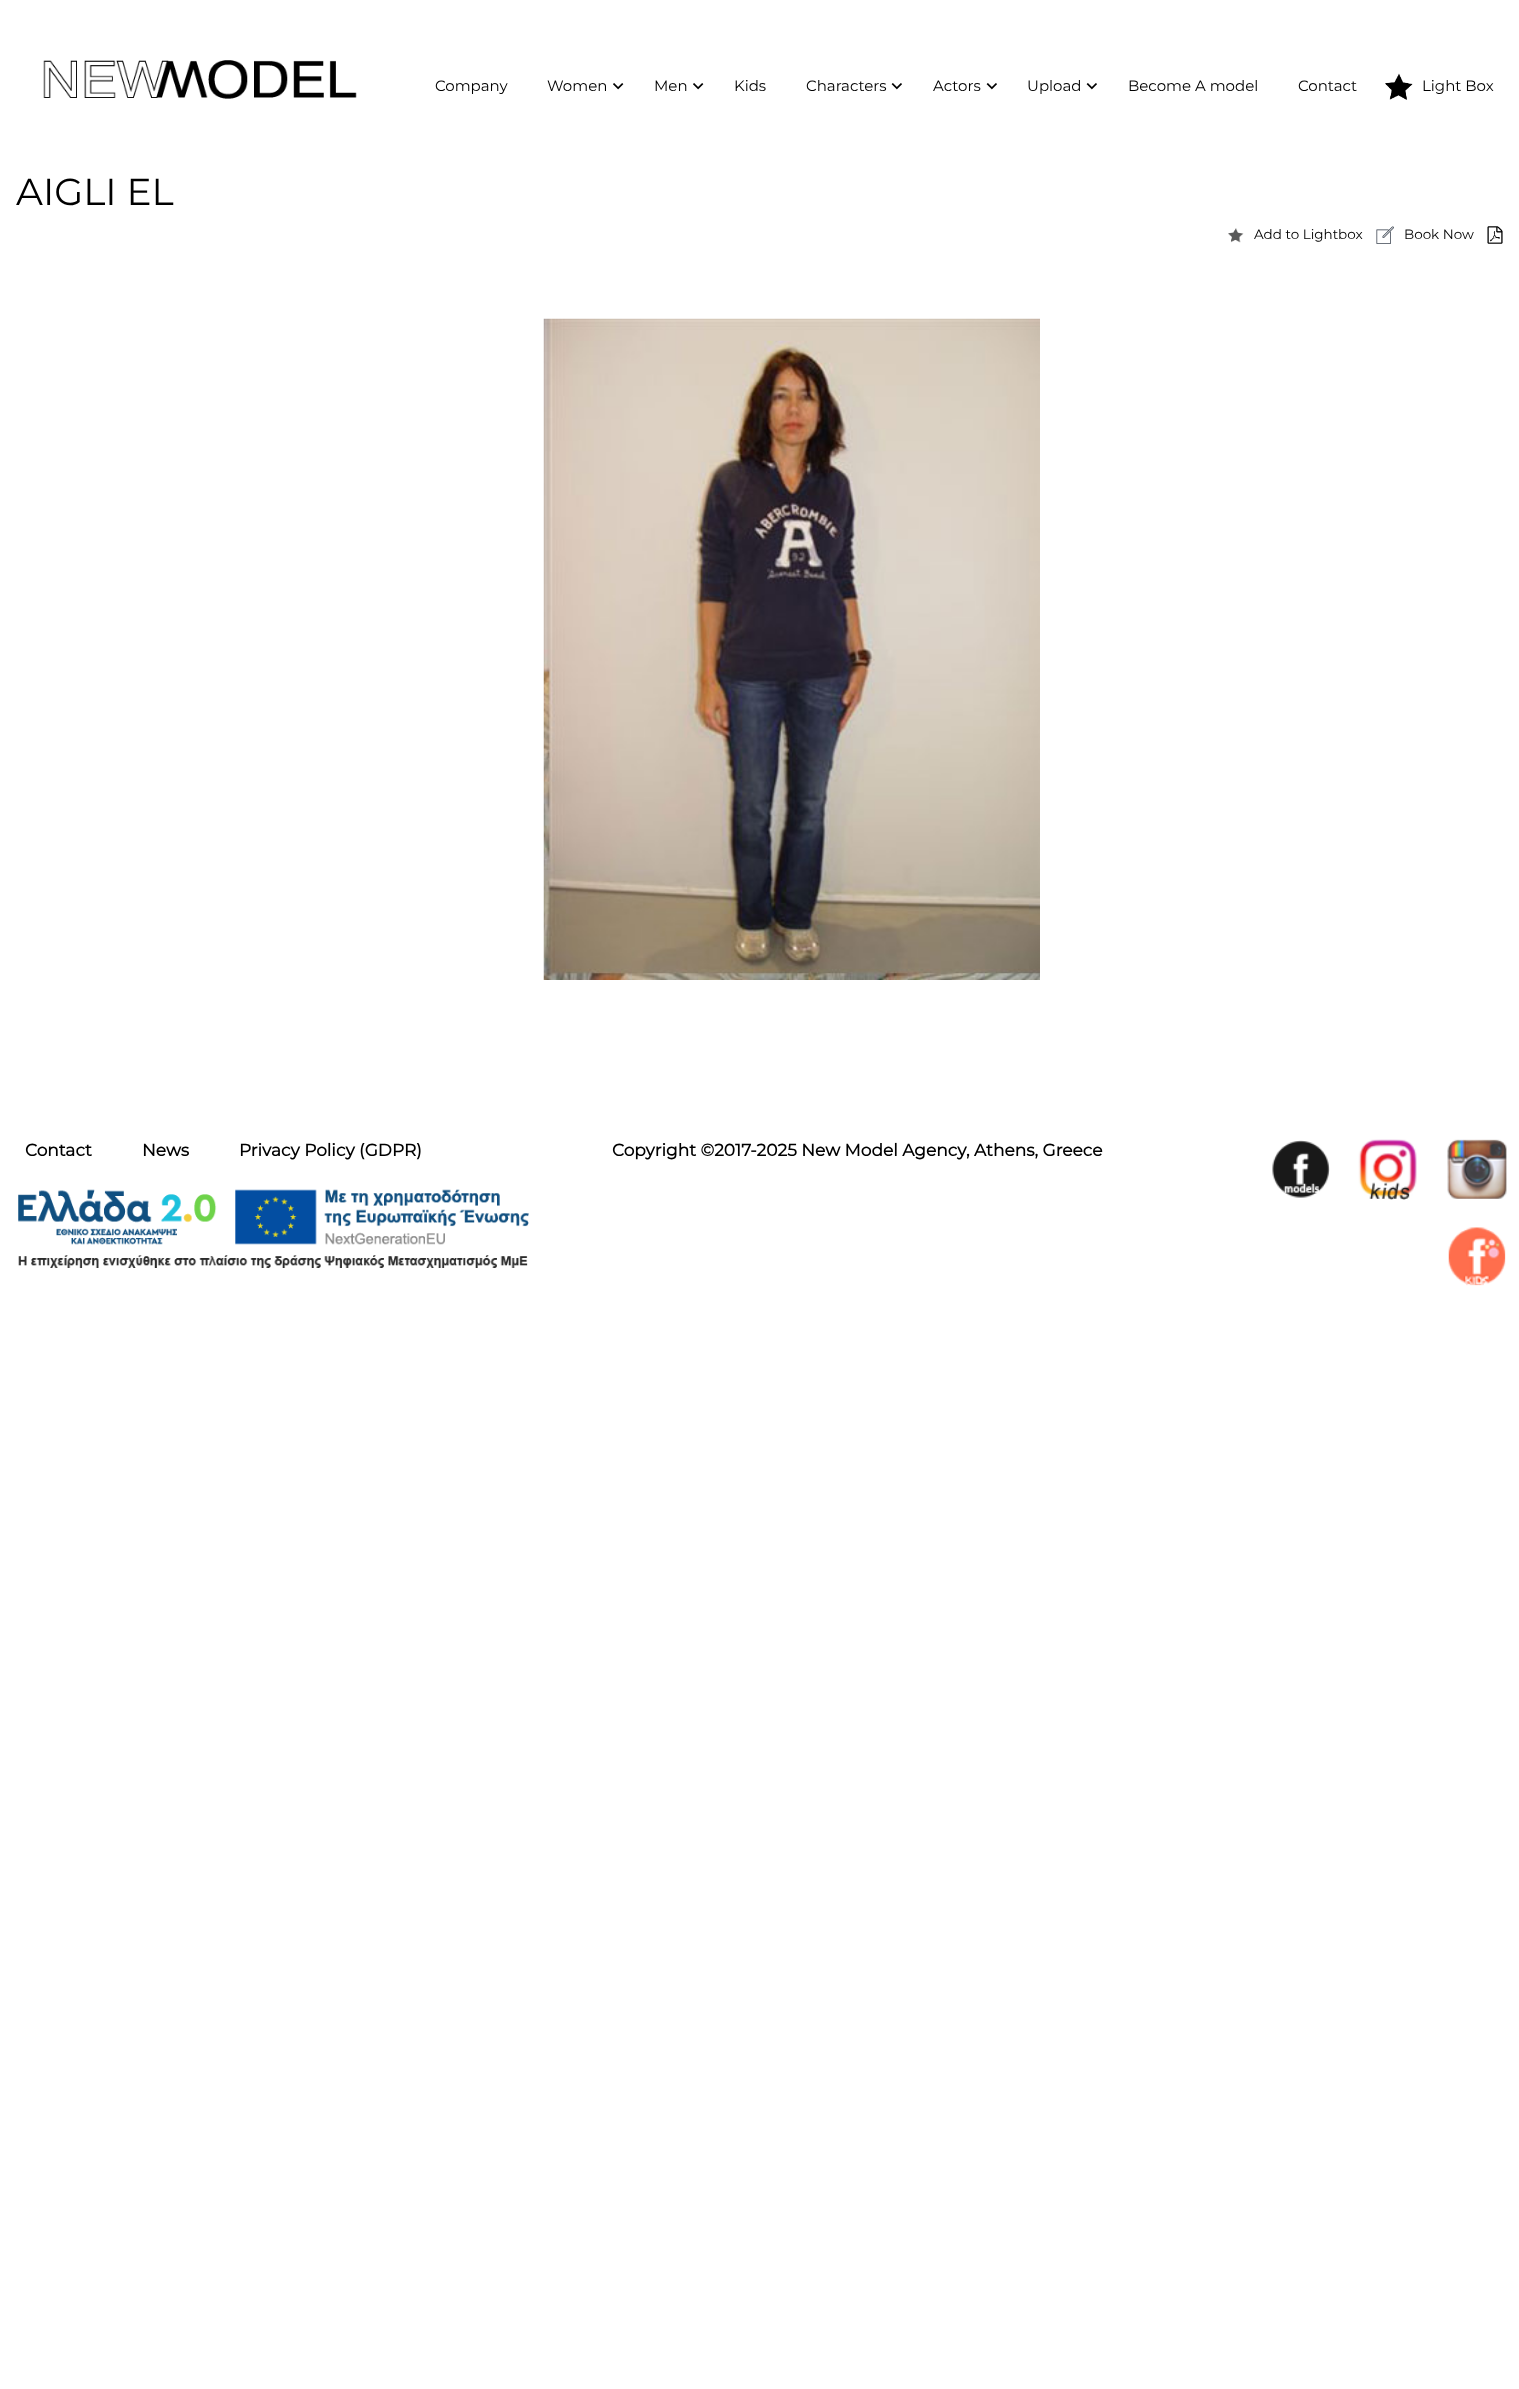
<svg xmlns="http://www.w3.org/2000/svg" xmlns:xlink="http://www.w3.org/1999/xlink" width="1519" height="2389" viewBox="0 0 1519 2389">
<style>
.cls-1{font:100 15px Montserrat;fill:#000000}
.cls-2{font:100 37.5px Montserrat;fill:#000000}
.cls-3{font:100 13.5px Montserrat;fill:#000000}
.cls-4{font:bold 17px Montserrat;fill:#000000}
</style>
<rect width="100%" height="100%" fill="#ffffff"/>
<image xlink:href="image0.png" x="43" y="60" width="314" height="39"/>
<image xlink:href="image1.png" x="613" y="83" width="11" height="7"/>
<image xlink:href="image1.png" x="693" y="83" width="11" height="7"/>
<image xlink:href="image2.png" x="891" y="83" width="11" height="7"/>
<image xlink:href="image2.png" x="986" y="83" width="11" height="7"/>
<image xlink:href="image2.png" x="1086" y="83" width="11" height="7"/>
<image xlink:href="image3.png" x="1385" y="73" width="28" height="27"/>
<image xlink:href="image4.png" x="1228" y="228" width="16" height="15"/>
<image xlink:href="image5.png" x="1376" y="226" width="18" height="18"/>
<image xlink:href="image6.png" x="1487" y="226" width="16" height="18"/>
<image xlink:href="image7.png" x="543" y="318" width="497" height="662"/>
<image xlink:href="image8.png" x="18" y="1189" width="511" height="79"/>
<image xlink:href="image9.png" x="1272" y="1140" width="58" height="58"/>
<image xlink:href="image10.png" x="1358" y="1139" width="59" height="61"/>
<image xlink:href="image11.png" x="1447" y="1139" width="60" height="60"/>
<image xlink:href="image12.png" x="1448" y="1227" width="58" height="59"/>
<text class="cls-1" x="435" y="91">Company</text>
<text class="cls-1" x="547" y="91">Women</text>
<text class="cls-1" x="654" y="91">Men</text>
<text class="cls-1" x="734" y="91">Kids</text>
<text class="cls-1" x="806" y="91">Characters</text>
<text class="cls-1" x="933" y="91">Actors</text>
<text class="cls-1" x="1027" y="91">Upload</text>
<text class="cls-1" x="1128" y="91">Become A model</text>
<text class="cls-1" x="1298" y="91">Contact</text>
<text class="cls-1" x="1422" y="91">Light Box</text>
<text class="cls-2" x="16" y="205">AIGLI EL</text>
<text class="cls-3" x="1254" y="239">Add to Lightbox</text>
<text class="cls-3" x="1404" y="239">Book Now</text>
<text class="cls-4" x="25" y="1156">Contact</text>
<text class="cls-4" x="142" y="1156">News</text>
<text class="cls-4" x="239" y="1156">Privacy Policy (GDPR)</text>
<text class="cls-4" x="612" y="1156">Copyright ©2017-2025 New Model Agency, Athens, Greece</text>
</svg>
